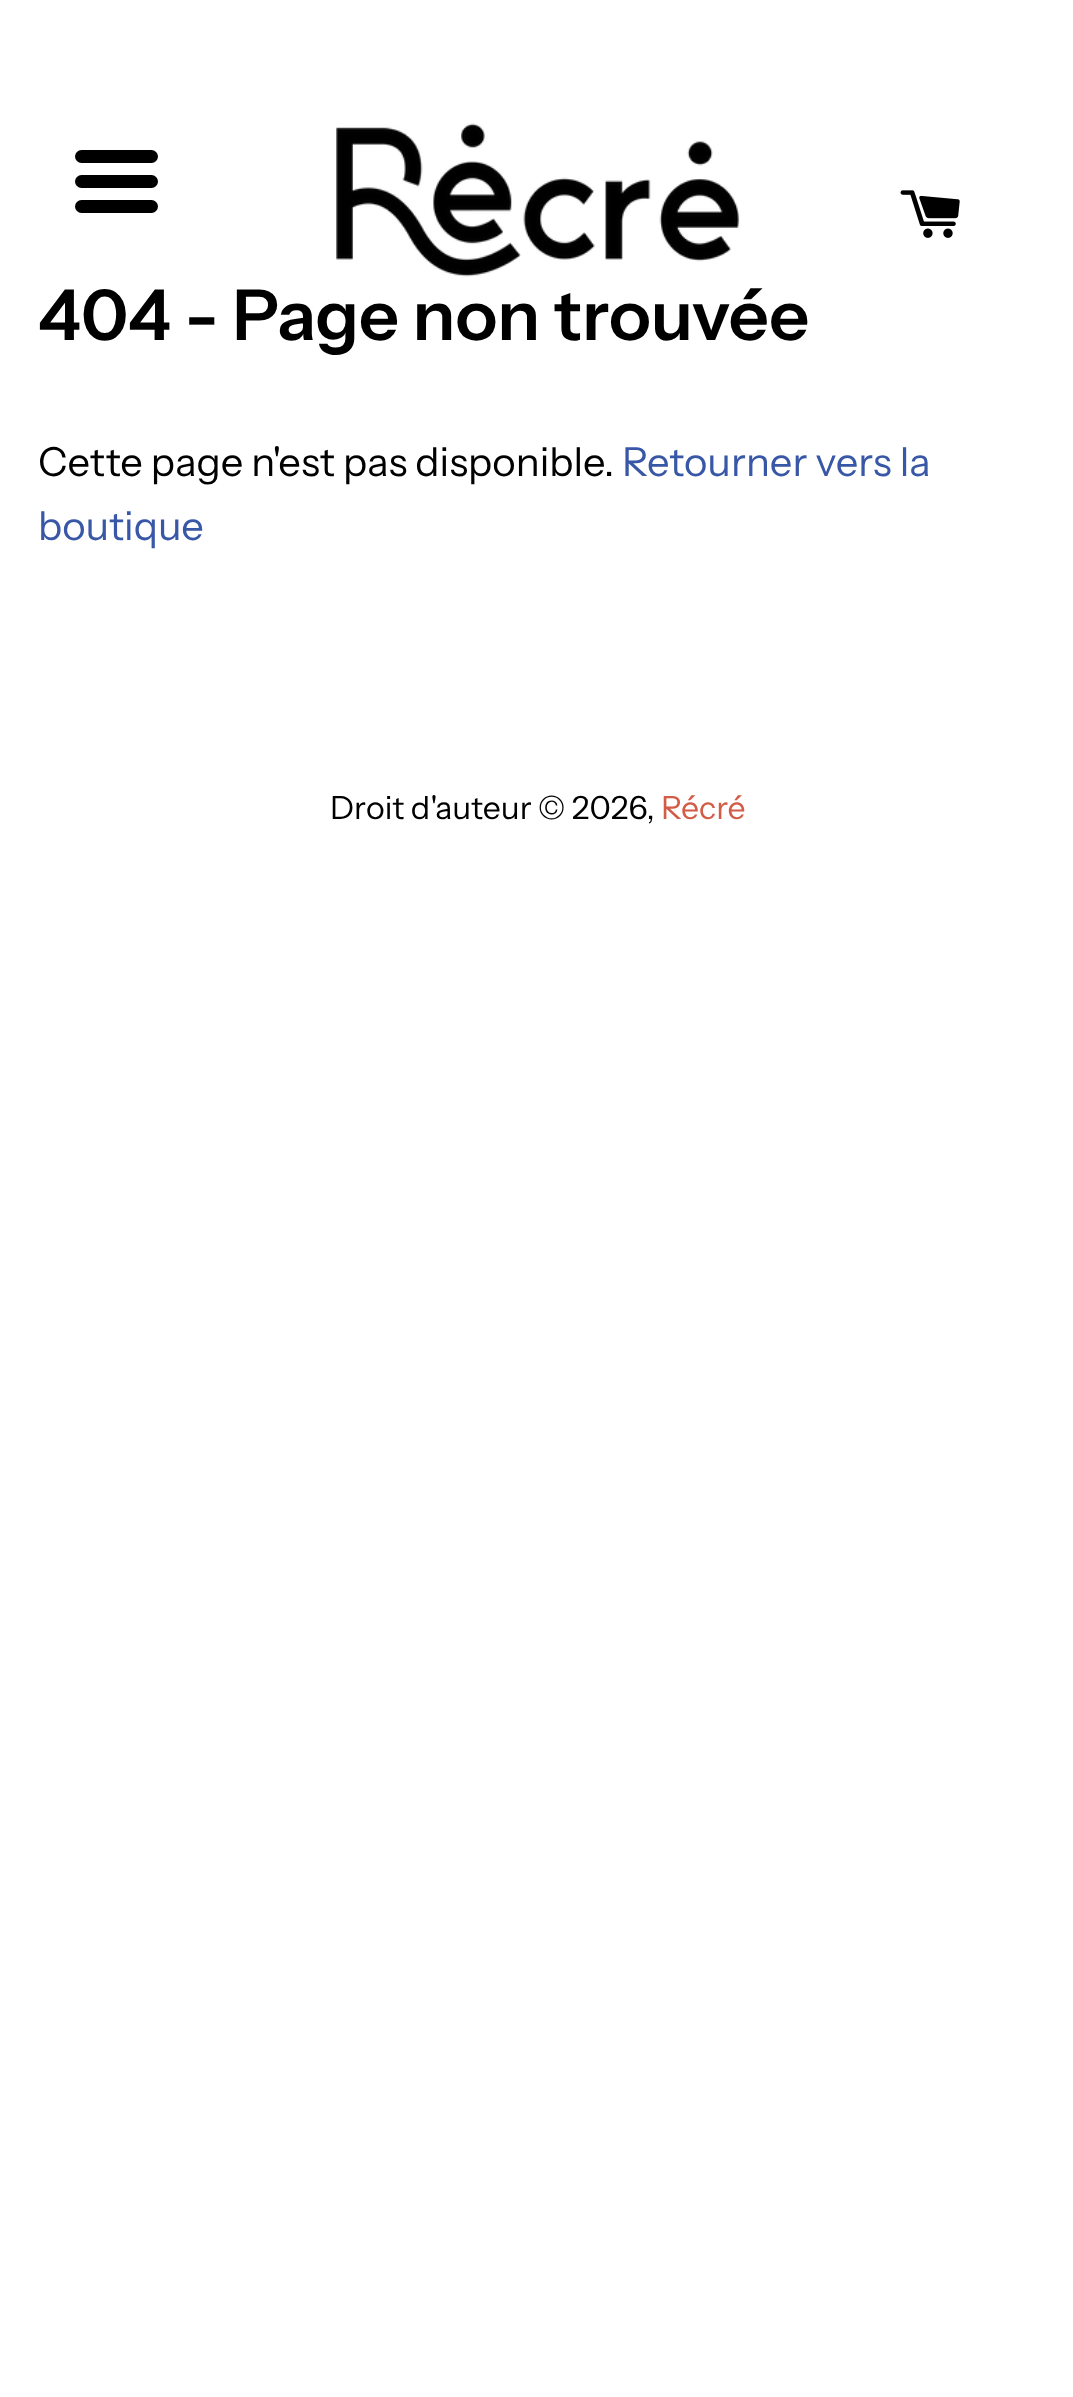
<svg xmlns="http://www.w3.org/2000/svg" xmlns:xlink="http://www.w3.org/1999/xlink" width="1073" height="2397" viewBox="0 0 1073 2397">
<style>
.cls-1{font:600 70px Instrument Sans;fill:#000000}
.cls-2{font:40px Instrument Sans;fill:#000000}
.cls-3{font:40px Instrument Sans;fill:#3857a6}
.cls-4{font:32px Instrument Sans;fill:#000000}
.cls-5{font:32px Instrument Sans;fill:#d35c46}
</style>
<rect width="100%" height="100%" fill="#ffffff"/>
<rect fill="#000000" x="75" y="150" width="83" height="13" rx="6.5"/>
<rect fill="#000000" x="75" y="175" width="83" height="13" rx="6.5"/>
<rect fill="#000000" x="75" y="200" width="83" height="13" rx="6.5"/>
<image xlink:href="image0.png" x="336" y="123" width="404" height="154"/>
<image xlink:href="image1.png" x="900" y="190" width="60" height="48"/>
<text class="cls-1" x="38" y="340">404 - Page non trouvée</text>
<text class="cls-2" x="38" y="476">Cette page n'est pas disponible.</text>
<text class="cls-3" x="622" y="476">Retourner vers la</text>
<text class="cls-3" x="38" y="540">boutique</text>
<text class="cls-4" x="330" y="819">Droit d'auteur © 2026,</text>
<text class="cls-5" x="661" y="819">Récré</text>
</svg>
